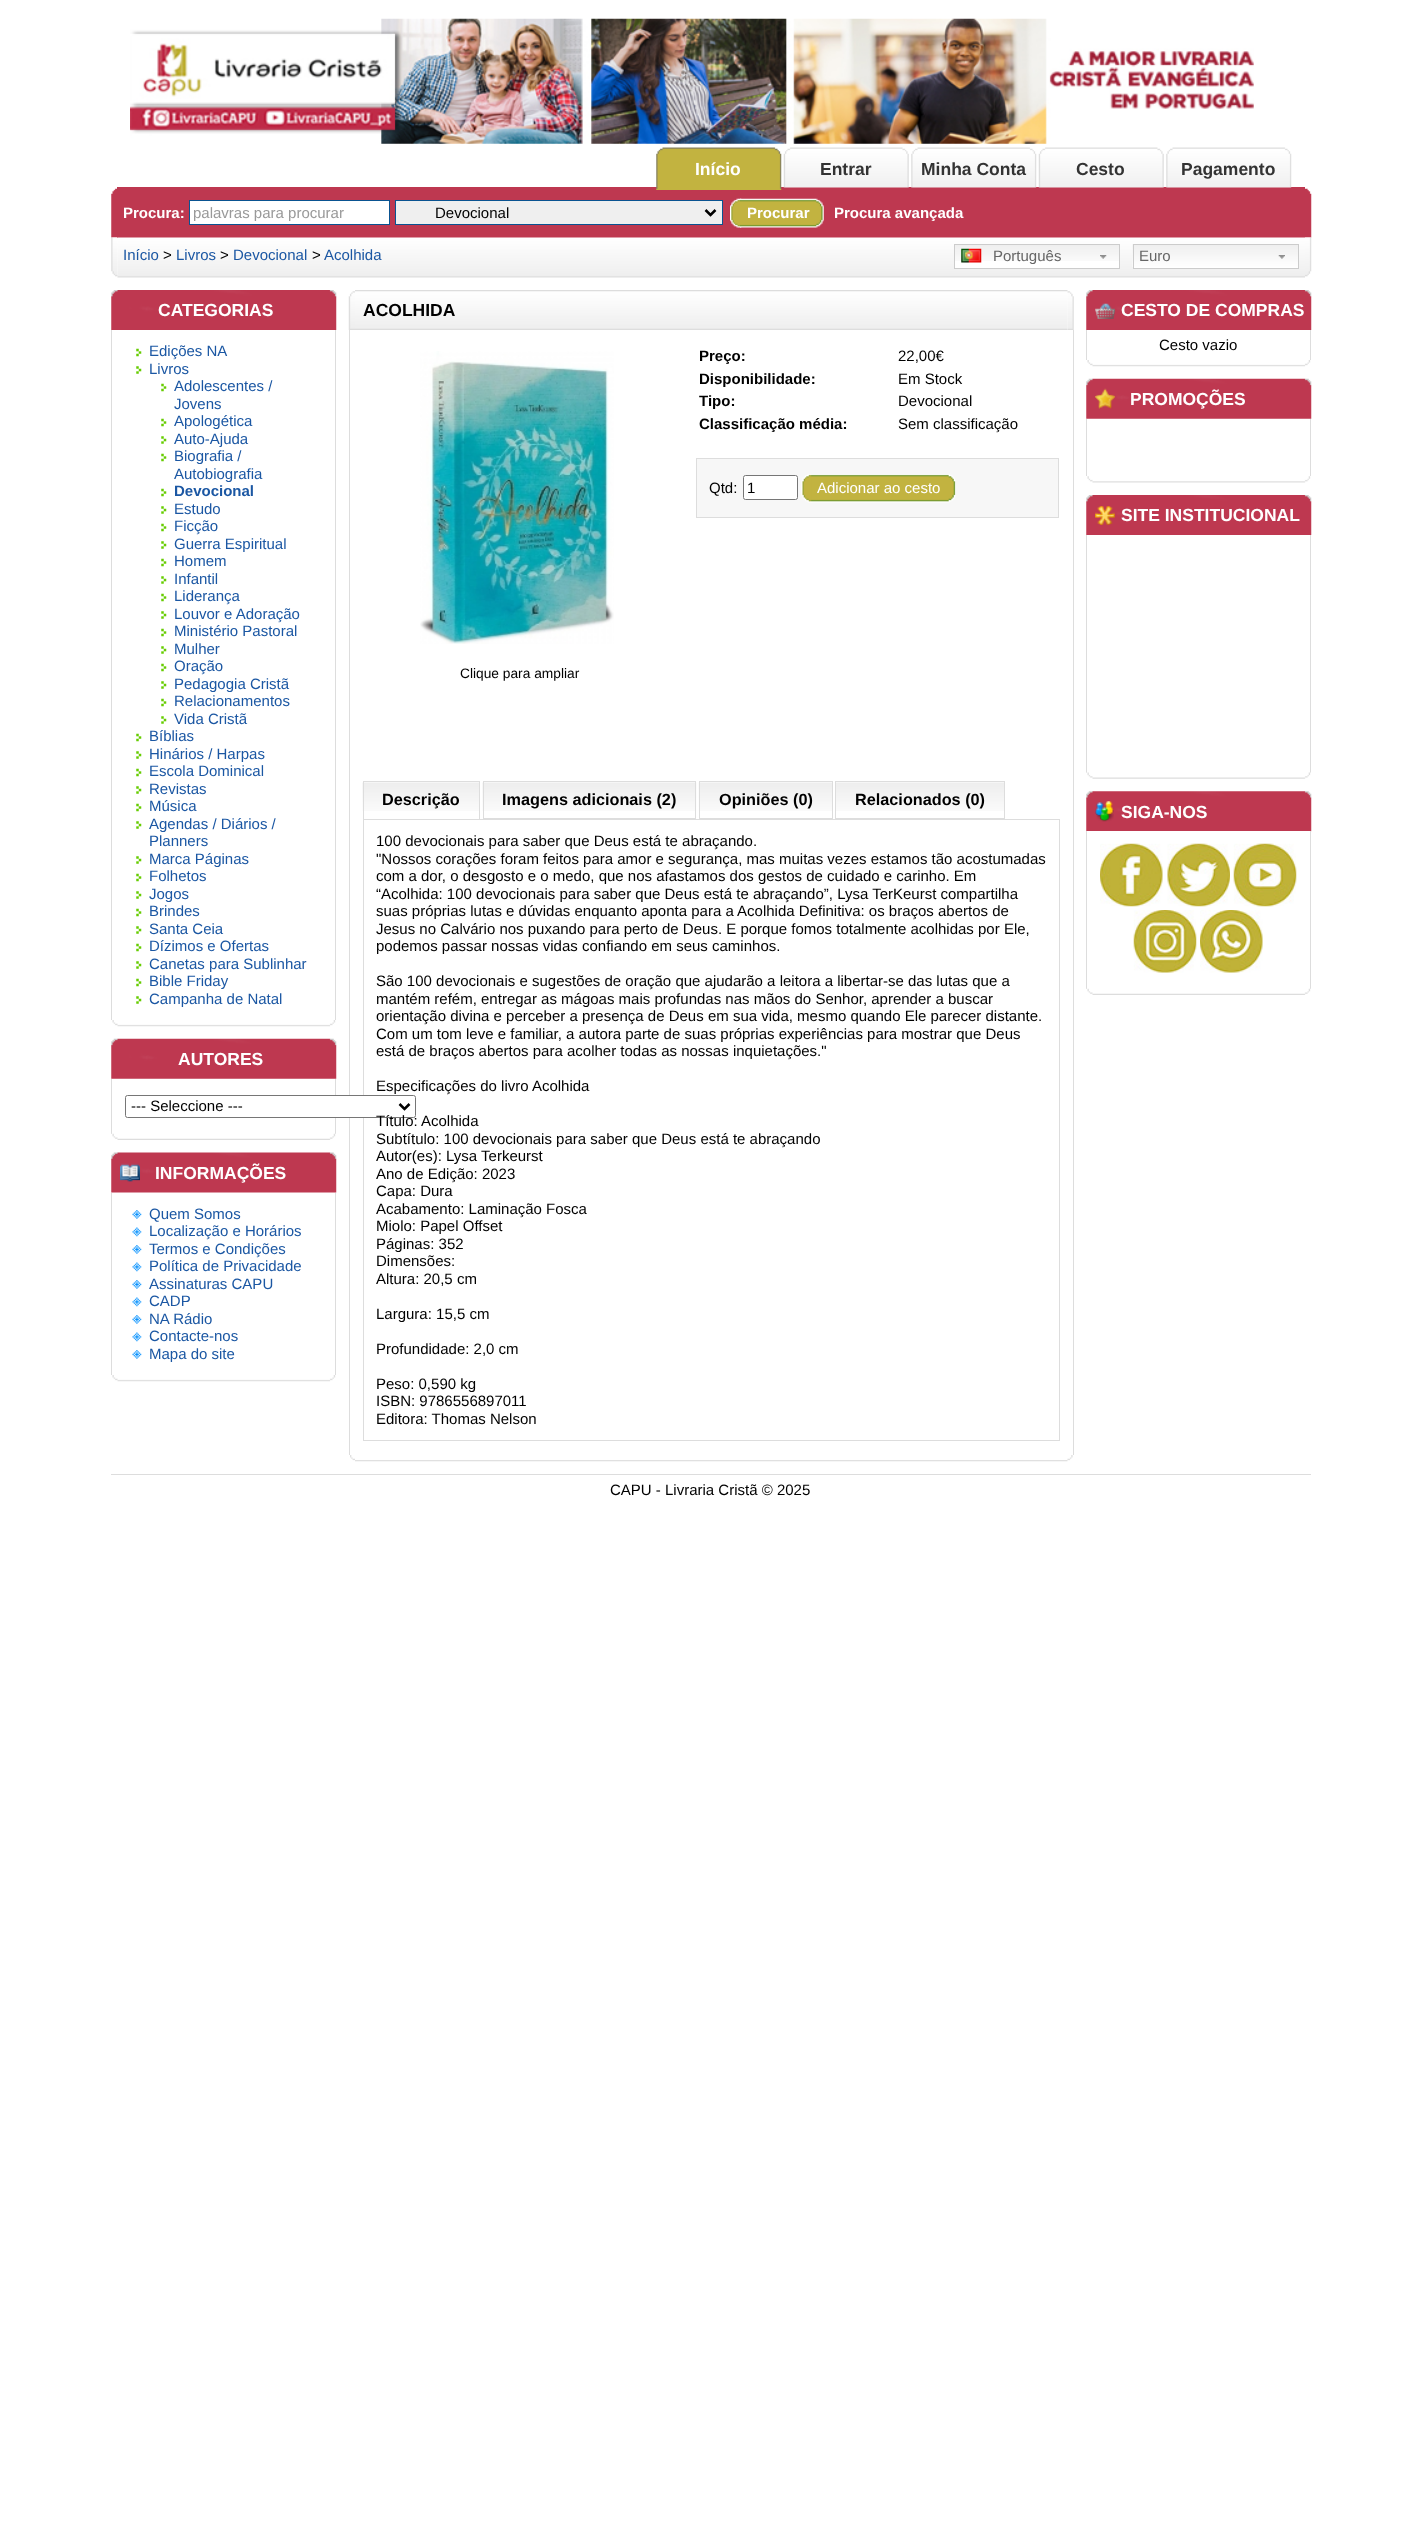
<svg xmlns="http://www.w3.org/2000/svg" xmlns:xlink="http://www.w3.org/1999/xlink" width="1421" height="2529" viewBox="0 0 1421 2529">
<style>
.cls-1{font:bold 17.5px Liberation Sans;fill:#ffffff}
.cls-2{font:bold 17.5px Liberation Sans;fill:#333333}
.cls-3{font:bold 15px Liberation Sans;fill:#ffffff}
.cls-4{font:15px Liberation Sans;fill:#999999}
.cls-5{font:15px Liberation Sans;fill:#000000}
.cls-6{font:15px Liberation Sans;fill:#1b57a3}
.cls-7{font:15px Liberation Sans;fill:#666666}
.cls-8{font:bold 15px Liberation Sans;fill:#1b57a3}
.cls-9{font:bold 17.5px Liberation Sans;fill:#000000}
.cls-10{font:bold 15px Liberation Sans;fill:#000000}
.cls-11{font:15px Liberation Sans;fill:#ffffff}
.cls-12{font:13.75px Liberation Sans;fill:#000000}
.cls-13{font:bold 16.25px Liberation Sans;fill:#000000}
</style>
<defs>
<clipPath id="clip1"><rect x="193" y="204" width="193" height="17"/></clipPath>
</defs>
<rect width="100%" height="100%" fill="#ffffff"/>
<image xlink:href="image0.png" x="130" y="18" width="1124" height="126"/>
<rect fill="#be3850" x="117" y="187" width="1188" height="51"/>
<image xlink:href="image1.png" x="656" y="147" width="126" height="43"/>
<image xlink:href="image2.png" x="783" y="147" width="126" height="41"/>
<image xlink:href="image3.png" x="911" y="147" width="126" height="41"/>
<image xlink:href="image4.png" x="1038" y="147" width="126" height="41"/>
<image xlink:href="image3.png" x="1166" y="147" width="126" height="41"/>
<image xlink:href="image10.png" x="117" y="237" width="1188" height="41"/>
<image xlink:href="image5.png" x="111" y="188" width="7" height="50"/>
<rect fill="#ffffff" stroke="#0a5391" x="189.5" y="200.5" width="200" height="24"/>
<rect fill="#efefef" stroke="#0a5391" x="395.5" y="200.5" width="327" height="24"/>
<path fill="none" stroke="#000000" stroke-width="2.5" d="M705.5 210L710.5 215L715.5 210"/>
<image xlink:href="image6.png" x="730" y="198" width="12" height="30"/>
<image xlink:href="image7.png" x="740" y="198" width="84" height="30"/>
<image xlink:href="image8.png" x="1305" y="188" width="7" height="50"/>
<image xlink:href="image9.png" x="111" y="237" width="7" height="40"/>
<rect fill="#ffffff" x="955" y="261" width="164" height="7"/>
<image xlink:href="image11.png" x="955" y="245" width="164" height="16"/>
<image xlink:href="image12.png" x="1100" y="255" width="7" height="4"/>
<rect fill="none" stroke="#cccccc" x="954.5" y="244.5" width="165" height="24"/>
<image xlink:href="image13.png" x="961" y="248" width="21" height="15"/>
<rect fill="#ffffff" x="1134" y="267" width="164" height="1"/>
<image xlink:href="image14.png" x="1132" y="244" width="166" height="23"/>
<image xlink:href="image15.png" x="1278" y="255" width="7" height="4"/>
<rect fill="none" stroke="#cccccc" x="1133.5" y="244.5" width="165" height="24"/>
<image xlink:href="image16.png" x="1305" y="237" width="7" height="40"/>
<image xlink:href="image17.png" x="111" y="290" width="226" height="40"/>
<rect fill="#dddddd" x="335" y="330" width="1" height="690"/>
<rect fill="#dddddd" x="111" y="330" width="1" height="690"/>
<image xlink:href="image18.png" x="136" y="348" width="6" height="9"/>
<image xlink:href="image19.png" x="136" y="366" width="6" height="8"/>
<image xlink:href="image18.png" x="161" y="383" width="6" height="9"/>
<image xlink:href="image18.png" x="161" y="418" width="6" height="9"/>
<image xlink:href="image19.png" x="161" y="436" width="6" height="8"/>
<image xlink:href="image18.png" x="161" y="453" width="6" height="9"/>
<image xlink:href="image18.png" x="161" y="488" width="6" height="9"/>
<image xlink:href="image19.png" x="161" y="506" width="6" height="8"/>
<image xlink:href="image18.png" x="161" y="523" width="6" height="9"/>
<image xlink:href="image19.png" x="161" y="541" width="6" height="8"/>
<image xlink:href="image18.png" x="161" y="558" width="6" height="9"/>
<image xlink:href="image19.png" x="161" y="576" width="6" height="8"/>
<image xlink:href="image18.png" x="161" y="593" width="6" height="9"/>
<image xlink:href="image19.png" x="161" y="611" width="6" height="8"/>
<image xlink:href="image18.png" x="161" y="628" width="6" height="9"/>
<image xlink:href="image19.png" x="161" y="646" width="6" height="8"/>
<image xlink:href="image18.png" x="161" y="663" width="6" height="9"/>
<image xlink:href="image19.png" x="161" y="681" width="6" height="8"/>
<image xlink:href="image18.png" x="161" y="698" width="6" height="9"/>
<image xlink:href="image19.png" x="161" y="716" width="6" height="8"/>
<image xlink:href="image18.png" x="136" y="733" width="6" height="9"/>
<image xlink:href="image19.png" x="136" y="751" width="6" height="8"/>
<image xlink:href="image18.png" x="136" y="768" width="6" height="9"/>
<image xlink:href="image19.png" x="136" y="786" width="6" height="8"/>
<image xlink:href="image18.png" x="136" y="803" width="6" height="9"/>
<image xlink:href="image19.png" x="136" y="821" width="6" height="8"/>
<image xlink:href="image19.png" x="136" y="856" width="6" height="8"/>
<image xlink:href="image18.png" x="136" y="873" width="6" height="9"/>
<image xlink:href="image19.png" x="136" y="891" width="6" height="8"/>
<image xlink:href="image18.png" x="136" y="908" width="6" height="9"/>
<image xlink:href="image19.png" x="136" y="926" width="6" height="8"/>
<image xlink:href="image18.png" x="136" y="943" width="6" height="9"/>
<image xlink:href="image19.png" x="136" y="961" width="6" height="8"/>
<image xlink:href="image18.png" x="136" y="978" width="6" height="9"/>
<image xlink:href="image19.png" x="136" y="996" width="6" height="8"/>
<image xlink:href="image20.png" x="112" y="1020" width="224" height="7"/>
<image xlink:href="image21.png" x="111" y="1038" width="226" height="41"/>
<rect fill="#dddddd" x="335" y="1079" width="1" height="55"/>
<rect fill="#dddddd" x="111" y="1079" width="1" height="55"/>
<rect fill="#dddddd" x="349" y="330" width="1" height="1125"/>
<rect fill="none" stroke="#dddddd" x="363.5" y="819.5" width="696" height="621"/>
<rect fill="#ffffff" stroke="#767676" x="125.5" y="1095.5" width="290" height="22" rx="2"/>
<path fill="none" stroke="#000000" stroke-width="2.5" d="M399.5 1104L404.5 1109L409.5 1104"/>
<image xlink:href="image22.png" x="111" y="1133" width="225" height="7"/>
<image xlink:href="image23.png" x="111" y="1152" width="226" height="41"/>
<image xlink:href="image24.png" x="120" y="1163" width="20" height="19"/>
<rect fill="#dddddd" x="335" y="1193" width="1" height="182"/>
<rect fill="#dddddd" x="111" y="1193" width="1" height="182"/>
<image xlink:href="image25.png" x="132" y="1210" width="10" height="9"/>
<image xlink:href="image26.png" x="132" y="1227" width="10" height="10"/>
<image xlink:href="image25.png" x="132" y="1245" width="10" height="9"/>
<image xlink:href="image26.png" x="132" y="1262" width="10" height="10"/>
<image xlink:href="image25.png" x="132" y="1280" width="10" height="9"/>
<image xlink:href="image26.png" x="132" y="1297" width="10" height="10"/>
<image xlink:href="image25.png" x="132" y="1315" width="10" height="9"/>
<image xlink:href="image26.png" x="132" y="1332" width="10" height="10"/>
<image xlink:href="image25.png" x="132" y="1350" width="10" height="9"/>
<image xlink:href="image20.png" x="112" y="1375" width="224" height="7"/>
<image xlink:href="image27.png" x="348" y="291" width="7" height="39"/>
<image xlink:href="image28.png" x="355" y="290" width="713" height="40"/>
<image xlink:href="image29.png" x="1067" y="291" width="7" height="39"/>
<rect fill="#dddddd" x="1073" y="330" width="1" height="1125"/>
<rect fill="#f7f7f7" stroke="#dddddd" x="696.5" y="458.5" width="362" height="59"/>
<rect fill="#ffffff" stroke="#767676" x="743.5" y="475.5" width="54" height="24" rx="2"/>
<image xlink:href="image30.png" x="801" y="474" width="12" height="29"/>
<image xlink:href="image31.png" x="811" y="474" width="145" height="29"/>
<image xlink:href="image32.png" x="420" y="351" width="194" height="293"/>
<image xlink:href="image33.png" x="362" y="782" width="117" height="29"/>
<rect fill="#dddddd" x="363" y="781" width="117" height="1"/>
<rect fill="#dddddd" x="479" y="781" width="1" height="38"/>
<rect fill="#dddddd" x="363" y="781" width="1" height="38"/>
<image xlink:href="image34.png" x="482" y="782" width="215" height="29"/>
<rect fill="none" stroke="#dddddd" x="483.5" y="781.5" width="212" height="37"/>
<image xlink:href="image35.png" x="698" y="782" width="134" height="29"/>
<rect fill="none" stroke="#dddddd" x="699.5" y="781.5" width="133" height="37"/>
<image xlink:href="image36.png" x="836" y="782" width="168" height="29"/>
<rect fill="none" stroke="#dddddd" x="835.5" y="781.5" width="169" height="37"/>
<image xlink:href="image37.png" x="350" y="1455" width="5" height="6"/>
<image xlink:href="image38.png" x="355" y="1460" width="713" height="2"/>
<image xlink:href="image39.png" x="1067" y="1455" width="6" height="6"/>
<image xlink:href="image40.png" x="1086" y="290" width="226" height="40"/>
<image xlink:href="image41.png" x="1095" y="303" width="20" height="16"/>
<rect fill="#dddddd" x="1310" y="330" width="1" height="30"/>
<rect fill="#dddddd" x="1086" y="330" width="1" height="30"/>
<image xlink:href="image42.png" x="1087" y="360" width="224" height="7"/>
<image xlink:href="image43.png" x="1086" y="378" width="226" height="41"/>
<image xlink:href="image44.png" x="1095" y="388" width="20" height="21"/>
<rect fill="#dddddd" x="1310" y="419" width="1" height="57"/>
<rect fill="#dddddd" x="1086" y="419" width="1" height="57"/>
<image xlink:href="image45.png" x="1087" y="476" width="224" height="7"/>
<image xlink:href="image46.png" x="1086" y="495" width="226" height="40"/>
<image xlink:href="image47.png" x="1095" y="506" width="20" height="19"/>
<rect fill="#dddddd" x="1310" y="535" width="1" height="238"/>
<rect fill="#dddddd" x="1086" y="535" width="1" height="238"/>
<image xlink:href="image48.png" x="1086" y="772" width="225" height="7"/>
<image xlink:href="image49.png" x="1086" y="791" width="226" height="41"/>
<image xlink:href="image50.png" x="1095" y="801" width="19" height="21"/>
<rect fill="#ffffff" x="1087" y="831" width="223" height="1"/>
<rect fill="#dddddd" x="1310" y="831" width="1" height="158"/>
<rect fill="#dddddd" x="1086" y="831" width="1" height="158"/>
<image xlink:href="image51.png" x="1100" y="843" width="63" height="64"/>
<image xlink:href="image52.png" x="1167" y="843" width="63" height="64"/>
<image xlink:href="image53.png" x="1233" y="843" width="64" height="64"/>
<image xlink:href="image54.png" x="1133" y="910" width="64" height="63"/>
<image xlink:href="image55.png" x="1200" y="910" width="63" height="63"/>
<image xlink:href="image56.png" x="1086" y="988" width="225" height="7"/>
<rect fill="#dddddd" x="111" y="1474" width="1200" height="1"/>
<text class="cls-1" x="695" y="175">Início</text>
<text class="cls-2" x="820" y="175">Entrar</text>
<text class="cls-2" x="921" y="175">Minha Conta</text>
<text class="cls-2" x="1076" y="175">Cesto</text>
<text class="cls-2" x="1181" y="175">Pagamento</text>
<text class="cls-3" x="123" y="218">Procura:</text>
<g clip-path="url(#clip1)">
<text class="cls-4" x="193" y="218">palavras para procurar</text>
</g>
<text class="cls-5" x="435" y="218">Devocional</text>
<text class="cls-3" x="747" y="218">Procurar</text>
<text class="cls-3" x="834" y="218">Procura avançada</text>
<text class="cls-6" x="123" y="260">Início</text>
<text class="cls-5" x="163" y="260">&gt;</text>
<text class="cls-6" x="176" y="260">Livros</text>
<text class="cls-5" x="220" y="260">&gt;</text>
<text class="cls-6" x="233" y="260">Devocional</text>
<text class="cls-5" x="312" y="260">&gt;</text>
<text class="cls-6" x="324" y="260">Acolhida</text>
<text class="cls-7" x="993" y="261">Português</text>
<text class="cls-7" x="1139" y="261">Euro</text>
<text class="cls-1" x="158" y="316">CATEGORIAS</text>
<text class="cls-6"><tspan x="149" y="356">Edições NA</tspan><tspan x="149" y="374">Livros</tspan></text>
<text class="cls-6"><tspan x="174" y="391">Adolescentes /</tspan><tspan x="174" y="409">Jovens</tspan><tspan x="174" y="426">Apologética</tspan><tspan x="174" y="444">Auto-Ajuda</tspan><tspan x="174" y="461">Biografia /</tspan><tspan x="174" y="479">Autobiografia</tspan></text>
<text class="cls-8" x="174" y="496">Devocional</text>
<text class="cls-6"><tspan x="174" y="514">Estudo</tspan><tspan x="174" y="531">Ficção</tspan><tspan x="174" y="549">Guerra Espiritual</tspan><tspan x="174" y="566">Homem</tspan><tspan x="174" y="584">Infantil</tspan><tspan x="174" y="601">Liderança</tspan><tspan x="174" y="619">Louvor e Adoração</tspan><tspan x="174" y="636">Ministério Pastoral</tspan><tspan x="174" y="654">Mulher</tspan><tspan x="174" y="671">Oração</tspan><tspan x="174" y="689">Pedagogia Cristã</tspan><tspan x="174" y="706">Relacionamentos</tspan><tspan x="174" y="724">Vida Cristã</tspan></text>
<text class="cls-6"><tspan x="149" y="741">Bíblias</tspan><tspan x="149" y="759">Hinários / Harpas</tspan><tspan x="149" y="776">Escola Dominical</tspan><tspan x="149" y="794">Revistas</tspan><tspan x="149" y="811">Música</tspan><tspan x="149" y="829">Agendas / Diários /</tspan><tspan x="149" y="846">Planners</tspan><tspan x="149" y="864">Marca Páginas</tspan><tspan x="149" y="881">Folhetos</tspan><tspan x="149" y="899">Jogos</tspan><tspan x="149" y="916">Brindes</tspan><tspan x="149" y="934">Santa Ceia</tspan><tspan x="149" y="951">Dízimos e Ofertas</tspan><tspan x="149" y="969">Canetas para Sublinhar</tspan><tspan x="149" y="986">Bible Friday</tspan><tspan x="149" y="1004">Campanha de Natal</tspan></text>
<text class="cls-1" x="178" y="1065">AUTORES</text>
<text class="cls-5" x="131" y="1111">--- Seleccione ---</text>
<text class="cls-1" x="155" y="1179">INFORMAÇÕES</text>
<text class="cls-6"><tspan x="149" y="1219">Quem Somos</tspan><tspan x="149" y="1236">Localização e Horários</tspan><tspan x="149" y="1254">Termos e Condições</tspan><tspan x="149" y="1271">Política de Privacidade</tspan><tspan x="149" y="1289">Assinaturas CAPU</tspan><tspan x="149" y="1306">CADP</tspan><tspan x="149" y="1324">NA Rádio</tspan><tspan x="149" y="1341">Contacte-nos</tspan><tspan x="149" y="1359">Mapa do site</tspan></text>
<text class="cls-9" x="363" y="316">ACOLHIDA</text>
<text class="cls-10" x="699" y="361">Preço:</text>
<text class="cls-5" x="898" y="361">22,00€</text>
<text class="cls-10" x="699" y="384">Disponibilidade:</text>
<text class="cls-5" x="898" y="384">Em Stock</text>
<text class="cls-10" x="699" y="406">Tipo:</text>
<text class="cls-5" x="898" y="406">Devocional</text>
<text class="cls-10" x="699" y="429">Classificação média:</text>
<text class="cls-5" x="898" y="429">Sem classificação</text>
<text class="cls-5" x="709" y="493">Qtd:</text>
<text class="cls-5" x="747" y="493">1</text>
<text class="cls-11" x="817" y="493">Adicionar ao cesto</text>
<text class="cls-12" x="460" y="678">Clique para ampliar</text>
<text class="cls-13" x="382" y="805">Descrição</text>
<text class="cls-13" x="502" y="805">Imagens adicionais (2)</text>
<text class="cls-13" x="719" y="805">Opiniões (0)</text>
<text class="cls-13" x="855" y="805">Relacionados (0)</text>
<text class="cls-5"><tspan x="376" y="846">100 devocionais para saber que Deus está te abraçando.</tspan><tspan x="376" y="864">"Nossos corações foram feitos para amor e segurança, mas muitas vezes estamos tão acostumadas</tspan><tspan x="376" y="881">com a dor, o desgosto e o medo, que nos afastamos dos gestos de cuidado e carinho. Em</tspan><tspan x="376" y="899">“Acolhida: 100 devocionais para saber que Deus está te abraçando”, Lysa TerKeurst compartilha</tspan><tspan x="376" y="916">suas próprias lutas e dúvidas enquanto aponta para a Acolhida Definitiva: os braços abertos de</tspan><tspan x="376" y="934">Jesus no Calvário nos puxando para perto de Deus. E porque fomos totalmente acolhidas por Ele,</tspan><tspan x="376" y="951">podemos passar nossas vidas confiando em seus caminhos.</tspan></text>
<text class="cls-5"><tspan x="376" y="986">São 100 devocionais e sugestões de oração que ajudarão a leitora a libertar-se das lutas que a</tspan><tspan x="376" y="1004">mantém refém, entregar as mágoas mais profundas nas mãos do Senhor, aprender a buscar</tspan><tspan x="376" y="1021">orientação divina e perceber a presença de Deus em sua vida, mesmo quando Ele parecer distante.</tspan><tspan x="376" y="1039">Com um tom leve e familiar, a autora parte de suas próprias experiências para mostrar que Deus</tspan><tspan x="376" y="1056">está de braços abertos para acolher todas as nossas inquietações."</tspan></text>
<text class="cls-5" x="376" y="1091">Especificações do livro Acolhida</text>
<text class="cls-5" x="376" y="1126">Título:</text>
<text class="cls-5" x="421" y="1126">Acolhida</text>
<text class="cls-5"><tspan x="376" y="1144">Subtítulo: 100 devocionais para saber que Deus está te abraçando</tspan><tspan x="376" y="1161">Autor(es): Lysa Terkeurst</tspan><tspan x="376" y="1179">Ano de Edição: 2023</tspan><tspan x="376" y="1196">Capa: Dura</tspan><tspan x="376" y="1214">Acabamento: Laminação Fosca</tspan><tspan x="376" y="1231">Miolo: Papel Offset</tspan><tspan x="376" y="1249">Páginas: 352</tspan><tspan x="376" y="1266">Dimensões:</tspan><tspan x="376" y="1284">Altura: 20,5 cm</tspan></text>
<text class="cls-5" x="376" y="1319">Largura: 15,5 cm</text>
<text class="cls-5" x="376" y="1354">Profundidade: 2,0 cm</text>
<text class="cls-5"><tspan x="376" y="1389">Peso: 0,590 kg</tspan><tspan x="376" y="1406">ISBN: 9786556897011</tspan><tspan x="376" y="1424">Editora: Thomas Nelson</tspan></text>
<text class="cls-1" x="1121" y="316">CESTO DE COMPRAS</text>
<text class="cls-5" x="1159" y="350">Cesto vazio</text>
<text class="cls-1" x="1130" y="405">PROMOÇÕES</text>
<text class="cls-1" x="1121" y="521">SITE INSTITUCIONAL</text>
<text class="cls-1" x="1121" y="818">SIGA-NOS</text>
<text class="cls-5" x="610" y="1495">CAPU - Livraria Cristã © 2025</text>
</svg>
